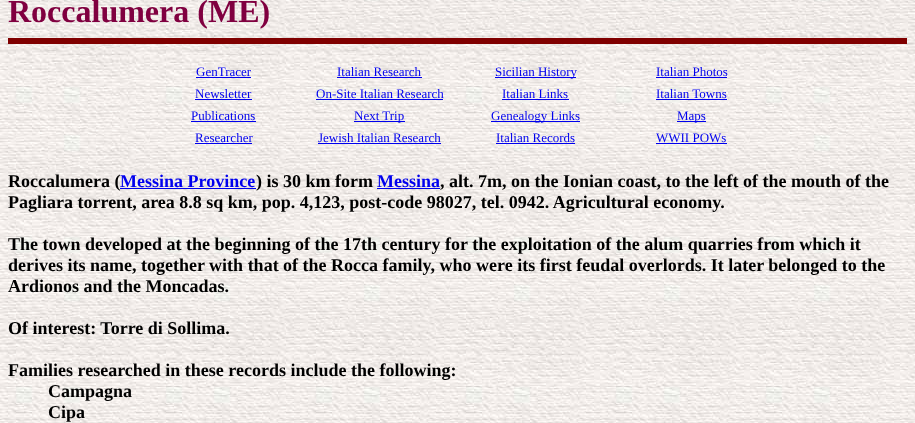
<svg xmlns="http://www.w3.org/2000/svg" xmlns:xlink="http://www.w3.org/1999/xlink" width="915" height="423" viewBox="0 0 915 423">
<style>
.cls-1{font:bold 32px Liberation Serif;fill:#800040}
.cls-2{font:13px Liberation Serif;fill:#0000ee}
.cls-3{font:bold 18px Liberation Serif;fill:#000000}
.cls-4{font:bold 18px Liberation Serif;fill:#0000ee}
</style>
<rect width="100%" height="100%" fill="#ffffff"/>
<image xlink:href="image0.png" x="0" y="0" width="915" height="423"/>
<rect fill="#800000" x="8" y="38" width="899" height="6"/>
<rect fill="#0000ee" x="196" y="77" width="55" height="1"/>
<rect fill="#0000ee" x="337" y="77" width="85" height="1"/>
<rect fill="#0000ee" x="495" y="77" width="81" height="1"/>
<rect fill="#0000ee" x="656" y="77" width="71" height="1"/>
<rect fill="#0000ee" x="195" y="99" width="57" height="1"/>
<rect fill="#0000ee" x="316" y="99" width="127" height="1"/>
<rect fill="#0000ee" x="502" y="99" width="67" height="1"/>
<rect fill="#0000ee" x="656" y="99" width="71" height="1"/>
<rect fill="#0000ee" x="191" y="121" width="65" height="1"/>
<rect fill="#0000ee" x="354" y="121" width="51" height="1"/>
<rect fill="#0000ee" x="491" y="121" width="89" height="1"/>
<rect fill="#0000ee" x="677" y="121" width="29" height="1"/>
<rect fill="#0000ee" x="195" y="143" width="57" height="1"/>
<rect fill="#0000ee" x="318" y="143" width="123" height="1"/>
<rect fill="#0000ee" x="496" y="143" width="79" height="1"/>
<rect fill="#0000ee" x="656" y="143" width="71" height="1"/>
<rect fill="#0000ee" x="120" y="188" width="136" height="1"/>
<rect fill="#0000ee" x="377" y="188" width="63" height="1"/>
<text class="cls-1" x="8" y="22">Roccalumera (ME)</text>
<text class="cls-2" x="196" y="76">GenTracer</text>
<text class="cls-2" x="337" y="76">Italian Research</text>
<text class="cls-2" x="495" y="76">Sicilian History</text>
<text class="cls-2" x="656" y="76">Italian Photos</text>
<text class="cls-2" x="195" y="98">Newsletter</text>
<text class="cls-2" x="316" y="98">On-Site Italian Research</text>
<text class="cls-2" x="502" y="98">Italian Links</text>
<text class="cls-2" x="656" y="98">Italian Towns</text>
<text class="cls-2" x="191" y="120">Publications</text>
<text class="cls-2" x="354" y="120">Next Trip</text>
<text class="cls-2" x="491" y="120">Genealogy Links</text>
<text class="cls-2" x="677" y="120">Maps</text>
<text class="cls-2" x="195" y="142">Researcher</text>
<text class="cls-2" x="318" y="142">Jewish Italian Research</text>
<text class="cls-2" x="496" y="142">Italian Records</text>
<text class="cls-2" x="656" y="142">WWII POWs</text>
<text class="cls-3" x="8" y="187">Roccalumera (</text>
<text class="cls-4" x="120" y="187">Messina Province</text>
<text class="cls-3" x="256" y="187">) is 30 km form</text>
<text class="cls-4" x="377" y="187">Messina</text>
<text class="cls-3" x="440" y="187">, alt. 7m, on the Ionian coast, to the left of the mouth of the</text>
<text class="cls-3" x="8" y="208">Pagliara torrent, area 8.8 sq km, pop. 4,123, post-code 98027, tel. 0942. Agricultural economy.</text>
<text class="cls-3"><tspan x="8" y="250">The town developed at the beginning of the 17th century for the exploitation of the alum quarries from which it</tspan><tspan x="8" y="271">derives its name, together with that of the Rocca family, who were its first feudal overlords. It later belonged to the</tspan><tspan x="8" y="292">Ardionos and the Moncadas.</tspan></text>
<text class="cls-3" x="8" y="334">Of interest: Torre di Sollima.</text>
<text class="cls-3" x="8" y="376">Families researched in these records include the following:</text>
<text class="cls-3"><tspan x="48" y="397">Campagna</tspan><tspan x="48" y="418">Cipa</tspan></text>
</svg>
